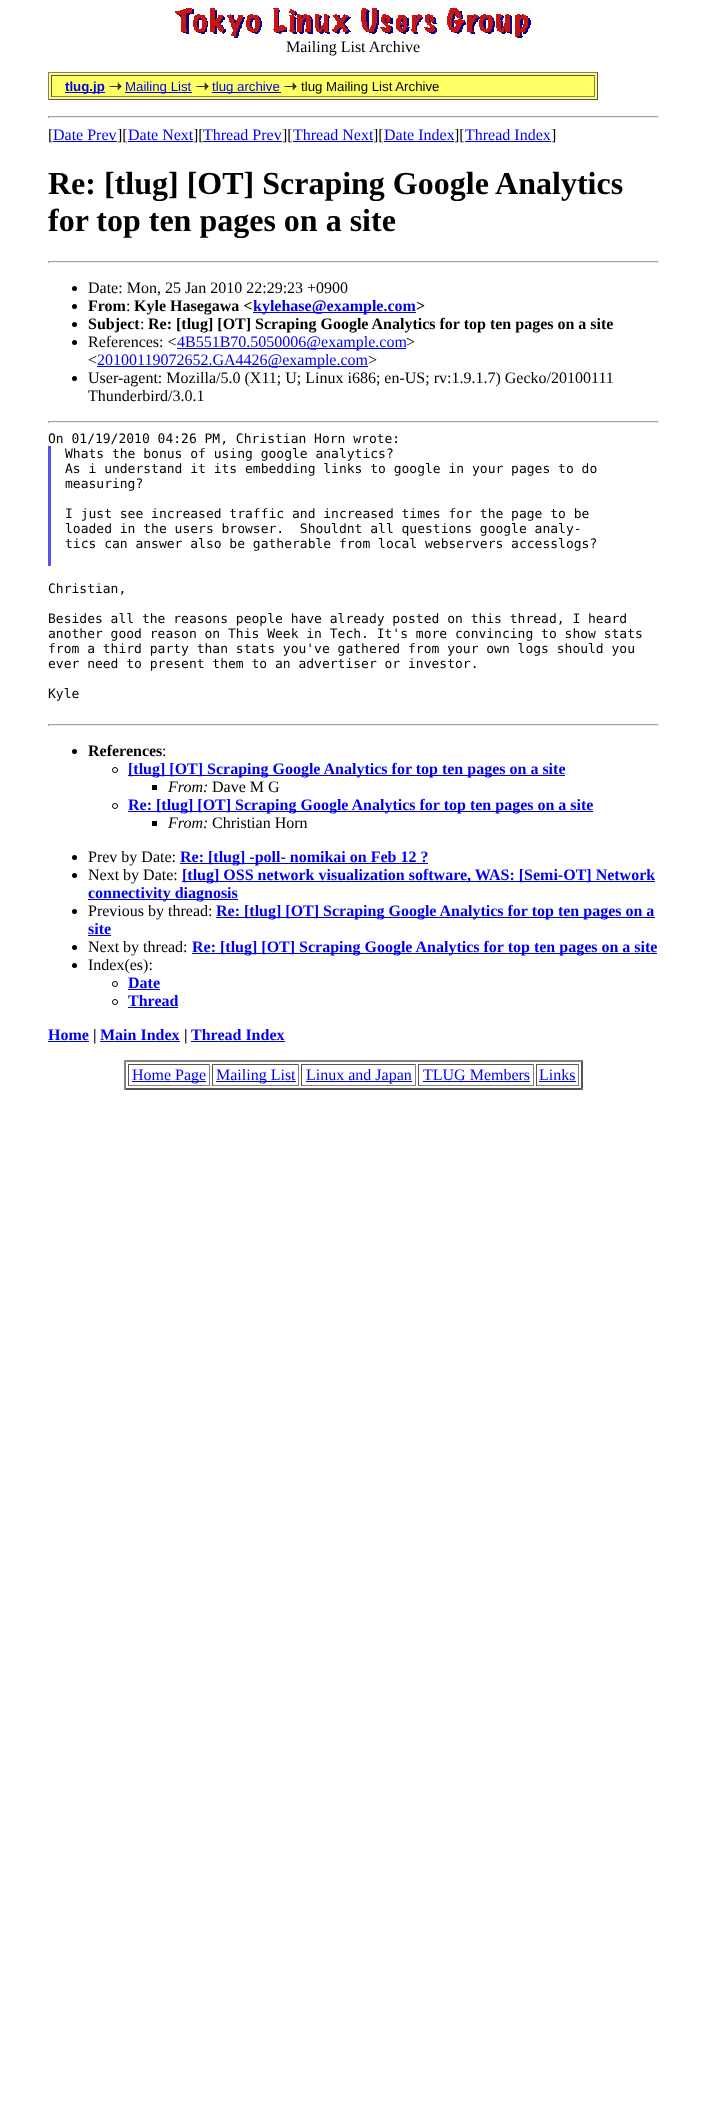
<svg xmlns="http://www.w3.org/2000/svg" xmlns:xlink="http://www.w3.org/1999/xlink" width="707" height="2112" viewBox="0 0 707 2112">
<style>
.cls-1{font:16px Liberation Serif;fill:#000000}
.cls-2{font:bold 13.25px Liberation Sans;fill:#0000ee}
.cls-3{font:13.25px Liberation Sans;fill:#0000ee}
.cls-4{font:13.25px Liberation Sans;fill:#000000}
.cls-5{font:16px Liberation Serif;fill:#0000ee}
.cls-6{font:bold 32px Liberation Serif;fill:#000000}
.cls-7{font:bold 16px Liberation Serif;fill:#000000}
.cls-8{font:bold 16px Liberation Serif;fill:#0000ee}
.cls-9{font:13px DejaVu Sans Mono;fill:#000000}
.cls-10{font:italic 16px Liberation Serif;fill:#000000}
</style>
<rect width="100%" height="100%" fill="#ffffff"/>
<image xlink:href="image0.png" x="175" y="8" width="356" height="30"/>
<rect fill="#ffff66" x="49" y="73" width="548" height="26"/>
<rect fill="#808080" x="48" y="72" width="550" height="1"/>
<rect fill="#555555" x="597" y="72" width="1" height="28"/>
<rect fill="#555555" x="48" y="99" width="550" height="1"/>
<rect fill="#808080" x="48" y="72" width="1" height="28"/>
<rect fill="#555555" x="51" y="75" width="544" height="1"/>
<rect fill="#808080" x="594" y="75" width="1" height="22"/>
<rect fill="#808080" x="51" y="96" width="544" height="1"/>
<rect fill="#555555" x="51" y="75" width="1" height="22"/>
<rect fill="#0000ee" x="65" y="92" width="40" height="1"/>
<image xlink:href="image1.png" x="109" y="82" width="13" height="9"/>
<rect fill="#0000ee" x="125" y="92" width="67" height="1"/>
<image xlink:href="image1.png" x="196" y="82" width="13" height="9"/>
<rect fill="#0000ee" x="212" y="92" width="69" height="1"/>
<image xlink:href="image1.png" x="284" y="82" width="13" height="9"/>
<rect fill="#9f9f9f" x="48" y="116" width="611" height="1"/>
<rect fill="#eeeeee" x="658" y="116" width="1" height="2"/>
<rect fill="#eeeeee" x="48" y="117" width="611" height="1"/>
<rect fill="#9f9f9f" x="48" y="116" width="1" height="2"/>
<rect fill="#0000ee" x="53" y="141" width="64" height="1"/>
<rect fill="#0000ee" x="128" y="141" width="65" height="1"/>
<rect fill="#0000ee" x="203" y="141" width="79" height="1"/>
<rect fill="#0000ee" x="293" y="141" width="80" height="1"/>
<rect fill="#0000ee" x="384" y="141" width="70" height="1"/>
<rect fill="#0000ee" x="465" y="141" width="86" height="1"/>
<rect fill="#9f9f9f" x="48" y="261" width="611" height="1"/>
<rect fill="#eeeeee" x="658" y="261" width="1" height="2"/>
<rect fill="#eeeeee" x="48" y="262" width="611" height="1"/>
<rect fill="#9f9f9f" x="48" y="261" width="1" height="2"/>
<circle fill="#000000" cx="74.5" cy="288.5" r="2.5"/>
<circle fill="#000000" cx="74.5" cy="306.5" r="2.5"/>
<rect fill="#0000ee" x="253" y="312" width="163" height="1"/>
<circle fill="#000000" cx="74.5" cy="324.5" r="2.5"/>
<circle fill="#000000" cx="74.5" cy="342.5" r="2.5"/>
<rect fill="#0000ee" x="177" y="348" width="229" height="1"/>
<rect fill="#0000ee" x="97" y="366" width="271" height="1"/>
<circle fill="#000000" cx="74.5" cy="378.5" r="2.5"/>
<rect fill="#9f9f9f" x="48" y="421" width="611" height="1"/>
<rect fill="#eeeeee" x="658" y="421" width="1" height="2"/>
<rect fill="#eeeeee" x="48" y="422" width="611" height="1"/>
<rect fill="#9f9f9f" x="48" y="421" width="1" height="2"/>
<rect fill="#5555ee" x="48" y="446" width="3" height="120"/>
<rect fill="#9f9f9f" x="48" y="724" width="611" height="1"/>
<rect fill="#eeeeee" x="658" y="724" width="1" height="2"/>
<rect fill="#eeeeee" x="48" y="725" width="611" height="1"/>
<rect fill="#9f9f9f" x="48" y="724" width="1" height="2"/>
<circle fill="#000000" cx="74.5" cy="751.5" r="2.5"/>
<circle fill="none" stroke="#000000" cx="115" cy="770" r="2.5"/>
<rect fill="#0000ee" x="128" y="775" width="437" height="1"/>
<rect fill="#000000" x="152" y="785" width="5" height="5"/>
<circle fill="none" stroke="#000000" cx="115" cy="806" r="2.5"/>
<rect fill="#0000ee" x="128" y="811" width="465" height="1"/>
<rect fill="#000000" x="152" y="821" width="5" height="5"/>
<circle fill="#000000" cx="74.5" cy="857.5" r="2.5"/>
<rect fill="#0000ee" x="180" y="863" width="248" height="1"/>
<circle fill="#000000" cx="74.5" cy="875.5" r="2.5"/>
<rect fill="#0000ee" x="182" y="881" width="473" height="1"/>
<rect fill="#0000ee" x="88" y="899" width="150" height="1"/>
<circle fill="#000000" cx="74.5" cy="911.5" r="2.5"/>
<rect fill="#0000ee" x="216" y="917" width="439" height="1"/>
<rect fill="#0000ee" x="88" y="935" width="23" height="1"/>
<circle fill="#000000" cx="74.5" cy="947.5" r="2.5"/>
<rect fill="#0000ee" x="192" y="953" width="465" height="1"/>
<circle fill="#000000" cx="74.5" cy="965.5" r="2.5"/>
<circle fill="none" stroke="#000000" cx="115" cy="984" r="2.5"/>
<rect fill="#0000ee" x="128" y="989" width="32" height="1"/>
<circle fill="none" stroke="#000000" cx="115" cy="1002" r="2.5"/>
<rect fill="#0000ee" x="128" y="1007" width="50" height="1"/>
<rect fill="#0000ee" x="48" y="1041" width="41" height="1"/>
<rect fill="#0000ee" x="100" y="1041" width="80" height="1"/>
<rect fill="#0000ee" x="191" y="1041" width="94" height="1"/>
<path fill="#808080" d="M124 1060H583L581 1062H126Z"/>
<path fill="#555555" d="M583 1060V1090L581 1088V1062Z"/>
<path fill="#555555" d="M583 1090H124L126 1088H581Z"/>
<path fill="#808080" d="M124 1090V1060L126 1062V1088Z"/>
<rect fill="#555555" x="128" y="1064" width="82" height="1"/>
<rect fill="#808080" x="209" y="1064" width="1" height="22"/>
<rect fill="#808080" x="128" y="1085" width="82" height="1"/>
<rect fill="#555555" x="128" y="1064" width="1" height="22"/>
<rect fill="#0000ee" x="132" y="1081" width="74" height="1"/>
<rect fill="#555555" x="212" y="1064" width="87" height="1"/>
<rect fill="#808080" x="298" y="1064" width="1" height="22"/>
<rect fill="#808080" x="212" y="1085" width="87" height="1"/>
<rect fill="#555555" x="212" y="1064" width="1" height="22"/>
<rect fill="#0000ee" x="216" y="1081" width="80" height="1"/>
<rect fill="#555555" x="301" y="1064" width="115" height="1"/>
<rect fill="#808080" x="415" y="1064" width="1" height="22"/>
<rect fill="#808080" x="301" y="1085" width="115" height="1"/>
<rect fill="#555555" x="301" y="1064" width="1" height="22"/>
<rect fill="#0000ee" x="306" y="1081" width="106" height="1"/>
<rect fill="#555555" x="418" y="1064" width="116" height="1"/>
<rect fill="#808080" x="533" y="1064" width="1" height="22"/>
<rect fill="#808080" x="418" y="1085" width="116" height="1"/>
<rect fill="#555555" x="418" y="1064" width="1" height="22"/>
<rect fill="#0000ee" x="423" y="1081" width="107" height="1"/>
<rect fill="#555555" x="536" y="1064" width="43" height="1"/>
<rect fill="#808080" x="578" y="1064" width="1" height="22"/>
<rect fill="#808080" x="536" y="1085" width="43" height="1"/>
<rect fill="#555555" x="536" y="1064" width="1" height="22"/>
<rect fill="#0000ee" x="539" y="1081" width="37" height="1"/>
<text class="cls-1" x="286" y="52">Mailing List Archive</text>
<text class="cls-2" x="65" y="91">tlug.jp</text>
<text class="cls-3" x="125" y="91">Mailing List</text>
<text class="cls-3" x="212" y="91">tlug archive</text>
<text class="cls-4" x="301" y="91">tlug Mailing List Archive</text>
<text class="cls-1" x="48" y="140">[</text>
<text class="cls-5" x="53" y="140">Date Prev</text>
<text class="cls-1" x="117" y="140">][</text>
<text class="cls-5" x="128" y="140">Date Next</text>
<text class="cls-1" x="193" y="140">][</text>
<text class="cls-5" x="203" y="140">Thread Prev</text>
<text class="cls-1" x="282" y="140">][</text>
<text class="cls-5" x="293" y="140">Thread Next</text>
<text class="cls-1" x="373" y="140">][</text>
<text class="cls-5" x="384" y="140">Date Index</text>
<text class="cls-1" x="454" y="140">][</text>
<text class="cls-5" x="465" y="140">Thread Index</text>
<text class="cls-1" x="551" y="140">]</text>
<text class="cls-6"><tspan x="48" y="194">Re: [tlug] [OT] Scraping Google Analytics</tspan><tspan x="48" y="231">for top ten pages on a site</tspan></text>
<text class="cls-1" x="88" y="293">Date: Mon, 25 Jan 2010 22:29:23 +0900</text>
<text class="cls-7" x="88" y="311">From</text>
<text class="cls-1" x="126" y="311">:</text>
<text class="cls-7" x="134" y="311">Kyle Hasegawa &lt;</text>
<text class="cls-8" x="253" y="311">kylehase@example.com</text>
<text class="cls-7" x="416" y="311">&gt;</text>
<text class="cls-7" x="88" y="329">Subject</text>
<text class="cls-1" x="140" y="329">:</text>
<text class="cls-7" x="148" y="329">Re: [tlug] [OT] Scraping Google Analytics for top ten pages on a site</text>
<text class="cls-1" x="88" y="347">References: &lt;</text>
<text class="cls-5" x="177" y="347">4B551B70.5050006@example.com</text>
<text class="cls-1" x="406" y="347">&gt;</text>
<text class="cls-1" x="88" y="365">&lt;</text>
<text class="cls-5" x="97" y="365">20100119072652.GA4426@example.com</text>
<text class="cls-1" x="368" y="365">&gt;</text>
<text class="cls-1"><tspan x="88" y="383">User-agent: Mozilla/5.0 (X11; U; Linux i686; en-US; rv:1.9.1.7) Gecko/20100111</tspan><tspan x="88" y="401">Thunderbird/3.0.1</tspan></text>
<text class="cls-9" x="48" y="443">On 01/19/2010 04:26 PM, Christian Horn wrote:</text>
<text class="cls-9"><tspan x="65" y="458">Whats the bonus of using google analytics?</tspan><tspan x="65" y="473">As i understand it its embedding links to google in your pages to do</tspan><tspan x="65" y="488">measuring?</tspan></text>
<text class="cls-9" xml:space="preserve"><tspan x="65" y="518">I just see increased traffic and increased times for the page to be</tspan><tspan x="65" y="533">loaded in the users browser.  Shouldnt all questions google analy-</tspan><tspan x="65" y="548">tics can answer also be gatherable from local webservers accesslogs?</tspan></text>
<text class="cls-9" x="48" y="593">Christian,</text>
<text class="cls-9"><tspan x="48" y="623">Besides all the reasons people have already posted on this thread, I heard</tspan><tspan x="48" y="638">another good reason on This Week in Tech. It's more convincing to show stats</tspan><tspan x="48" y="653">from a third party than stats you've gathered from your own logs should you</tspan><tspan x="48" y="668">ever need to present them to an advertiser or investor.</tspan></text>
<text class="cls-9" x="48" y="698">Kyle</text>
<text class="cls-7" x="88" y="756">References</text>
<text class="cls-1" x="162" y="756">:</text>
<text class="cls-8" x="128" y="774">[tlug] [OT] Scraping Google Analytics for top ten pages on a site</text>
<text class="cls-10" x="168" y="792">From:</text>
<text class="cls-1" x="212" y="792">Dave M G</text>
<text class="cls-8" x="128" y="810">Re: [tlug] [OT] Scraping Google Analytics for top ten pages on a site</text>
<text class="cls-10" x="168" y="828">From:</text>
<text class="cls-1" x="212" y="828">Christian Horn</text>
<text class="cls-1" x="88" y="862">Prev by Date:</text>
<text class="cls-8" x="180" y="862">Re: [tlug] -poll- nomikai on Feb 12 ?</text>
<text class="cls-1" x="88" y="880">Next by Date:</text>
<text class="cls-8" x="182" y="880">[tlug] OSS network visualization software, WAS: [Semi-OT] Network</text>
<text class="cls-8" x="88" y="898">connectivity diagnosis</text>
<text class="cls-1" x="88" y="916">Previous by thread:</text>
<text class="cls-8" x="216" y="916">Re: [tlug] [OT] Scraping Google Analytics for top ten pages on a</text>
<text class="cls-8" x="88" y="934">site</text>
<text class="cls-1" x="88" y="952">Next by thread:</text>
<text class="cls-8" x="192" y="952">Re: [tlug] [OT] Scraping Google Analytics for top ten pages on a site</text>
<text class="cls-1" x="88" y="970">Index(es):</text>
<text class="cls-8"><tspan x="128" y="988">Date</tspan><tspan x="128" y="1006">Thread</tspan></text>
<text class="cls-8" x="48" y="1040">Home</text>
<text class="cls-7" x="93" y="1040">|</text>
<text class="cls-8" x="100" y="1040">Main Index</text>
<text class="cls-7" x="184" y="1040">|</text>
<text class="cls-8" x="191" y="1040">Thread Index</text>
<text class="cls-5" x="132" y="1080">Home Page</text>
<text class="cls-5" x="216" y="1080">Mailing List</text>
<text class="cls-5" x="306" y="1080">Linux and Japan</text>
<text class="cls-5" x="423" y="1080">TLUG Members</text>
<text class="cls-5" x="539" y="1080">Links</text>
</svg>
